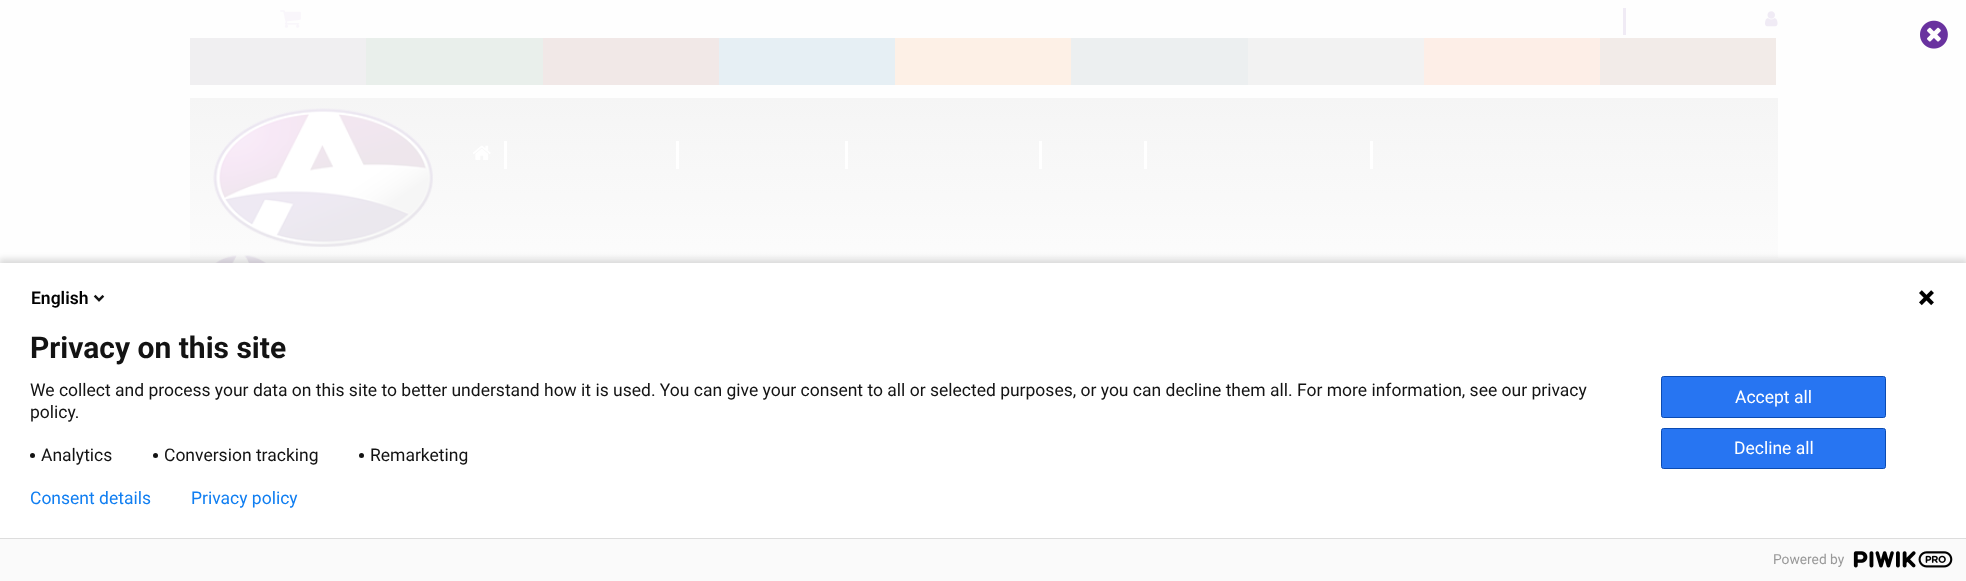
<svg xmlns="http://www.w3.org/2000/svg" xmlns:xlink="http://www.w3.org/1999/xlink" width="1966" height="581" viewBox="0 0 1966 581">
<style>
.cls-1{font:600 17.5px Roboto;fill:#000000}
.cls-2{font:bold 30px Roboto;fill:#131313}
.cls-3{font:17.5px Roboto;fill:#131313}
.cls-4{font:17.5px Roboto;fill:#ffffff}
.cls-5{font:17.5px Roboto;fill:#107ef1}
.cls-6{font:13.75px Roboto;fill:#999999}
</style>
<defs>
<linearGradient id="g1" gradientUnits="userSpaceOnUse" x1="984" y1="97" x2="984" y2="345"><stop offset="0" stop-color="#f5f5f5"/><stop offset="1" stop-color="#ffffff"/></linearGradient>
</defs>
<rect width="100%" height="100%" fill="#fefefe"/>
<image xlink:href="image0.png" x="280" y="10" width="21" height="18"/>
<rect fill="#f0ebf5" x="1623" y="8" width="3" height="27"/>
<image xlink:href="image1.png" x="1765" y="11" width="13" height="16"/>
<rect fill="#f0eff1" x="190" y="38" width="176" height="47"/>
<rect fill="#e9efeb" x="366" y="38" width="177" height="47"/>
<rect fill="#f1e8e7" x="543" y="38" width="176" height="47"/>
<rect fill="#e6eff4" x="719" y="38" width="176" height="47"/>
<rect fill="#fdf0e6" x="895" y="38" width="176" height="47"/>
<rect fill="#eceff0" x="1071" y="38" width="177" height="47"/>
<rect fill="#f2f2f2" x="1248" y="38" width="176" height="47"/>
<rect fill="#fdeee7" x="1424" y="38" width="176" height="47"/>
<rect fill="#f2ebe8" x="1600" y="38" width="176" height="47"/>
<image xlink:href="image2.png" x="1920" y="20" width="28" height="29"/>
<rect fill="url(#g1)" x="190" y="98" width="1588" height="160"/>
<image xlink:href="image3.png" x="213" y="108" width="220" height="155"/>
<image xlink:href="image4.png" x="472" y="145" width="19" height="15"/>
<rect fill="#ffffff" x="504" y="141" width="3" height="28"/>
<rect fill="#ffffff" x="676" y="141" width="3" height="28"/>
<rect fill="#ffffff" x="845" y="141" width="3" height="28"/>
<rect fill="#ffffff" x="1039" y="141" width="3" height="28"/>
<rect fill="#ffffff" x="1144" y="141" width="3" height="28"/>
<rect fill="#ffffff" x="1370" y="141" width="3" height="28"/>
<rect fill="#000000" fill-opacity="0.14" filter="blur(3px)" x="-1" y="259" width="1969" height="321"/>
<rect fill="#ffffff" x="0" y="263" width="1966" height="275"/>
<image xlink:href="image5.png" x="93" y="294" width="12" height="8"/>
<image xlink:href="image6.png" x="1919" y="290" width="15" height="16"/>
<circle fill="#131313" cx="32.5" cy="455.5" r="2.5"/>
<circle fill="#131313" cx="155.5" cy="455.5" r="2.5"/>
<circle fill="#131313" cx="361.5" cy="455.5" r="2.5"/>
<rect fill="#2775f2" stroke="#0b4bb3" x="1661.5" y="376.5" width="224" height="41" rx="2"/>
<rect fill="#2775f2" stroke="#0b4bb3" x="1661.5" y="428.5" width="224" height="40" rx="2"/>
<rect fill="#fafafa" x="0" y="539" width="1966" height="42"/>
<rect fill="#dddddd" x="0" y="538" width="1966" height="1"/>
<image xlink:href="image7.png" x="1853" y="551" width="100" height="17"/>
<text class="cls-1" x="31" y="304">English</text>
<text class="cls-2" x="30" y="358">Privacy on this site</text>
<text class="cls-3"><tspan x="30" y="396">We collect and process your data on this site to better understand how it is used. You can give your consent to all or selected purposes, or you can decline them all. For more information, see our privacy</tspan><tspan x="30" y="418">policy.</tspan></text>
<text class="cls-3" x="41" y="461">Analytics</text>
<text class="cls-3" x="164" y="461">Conversion tracking</text>
<text class="cls-3" x="370" y="461">Remarketing</text>
<text class="cls-4" x="1735" y="403">Accept all</text>
<text class="cls-4" x="1734" y="454">Decline all</text>
<text class="cls-5" x="30" y="504">Consent details</text>
<text class="cls-5" x="191" y="504">Privacy policy</text>
<text class="cls-6" x="1773" y="564">Powered by</text>
</svg>
